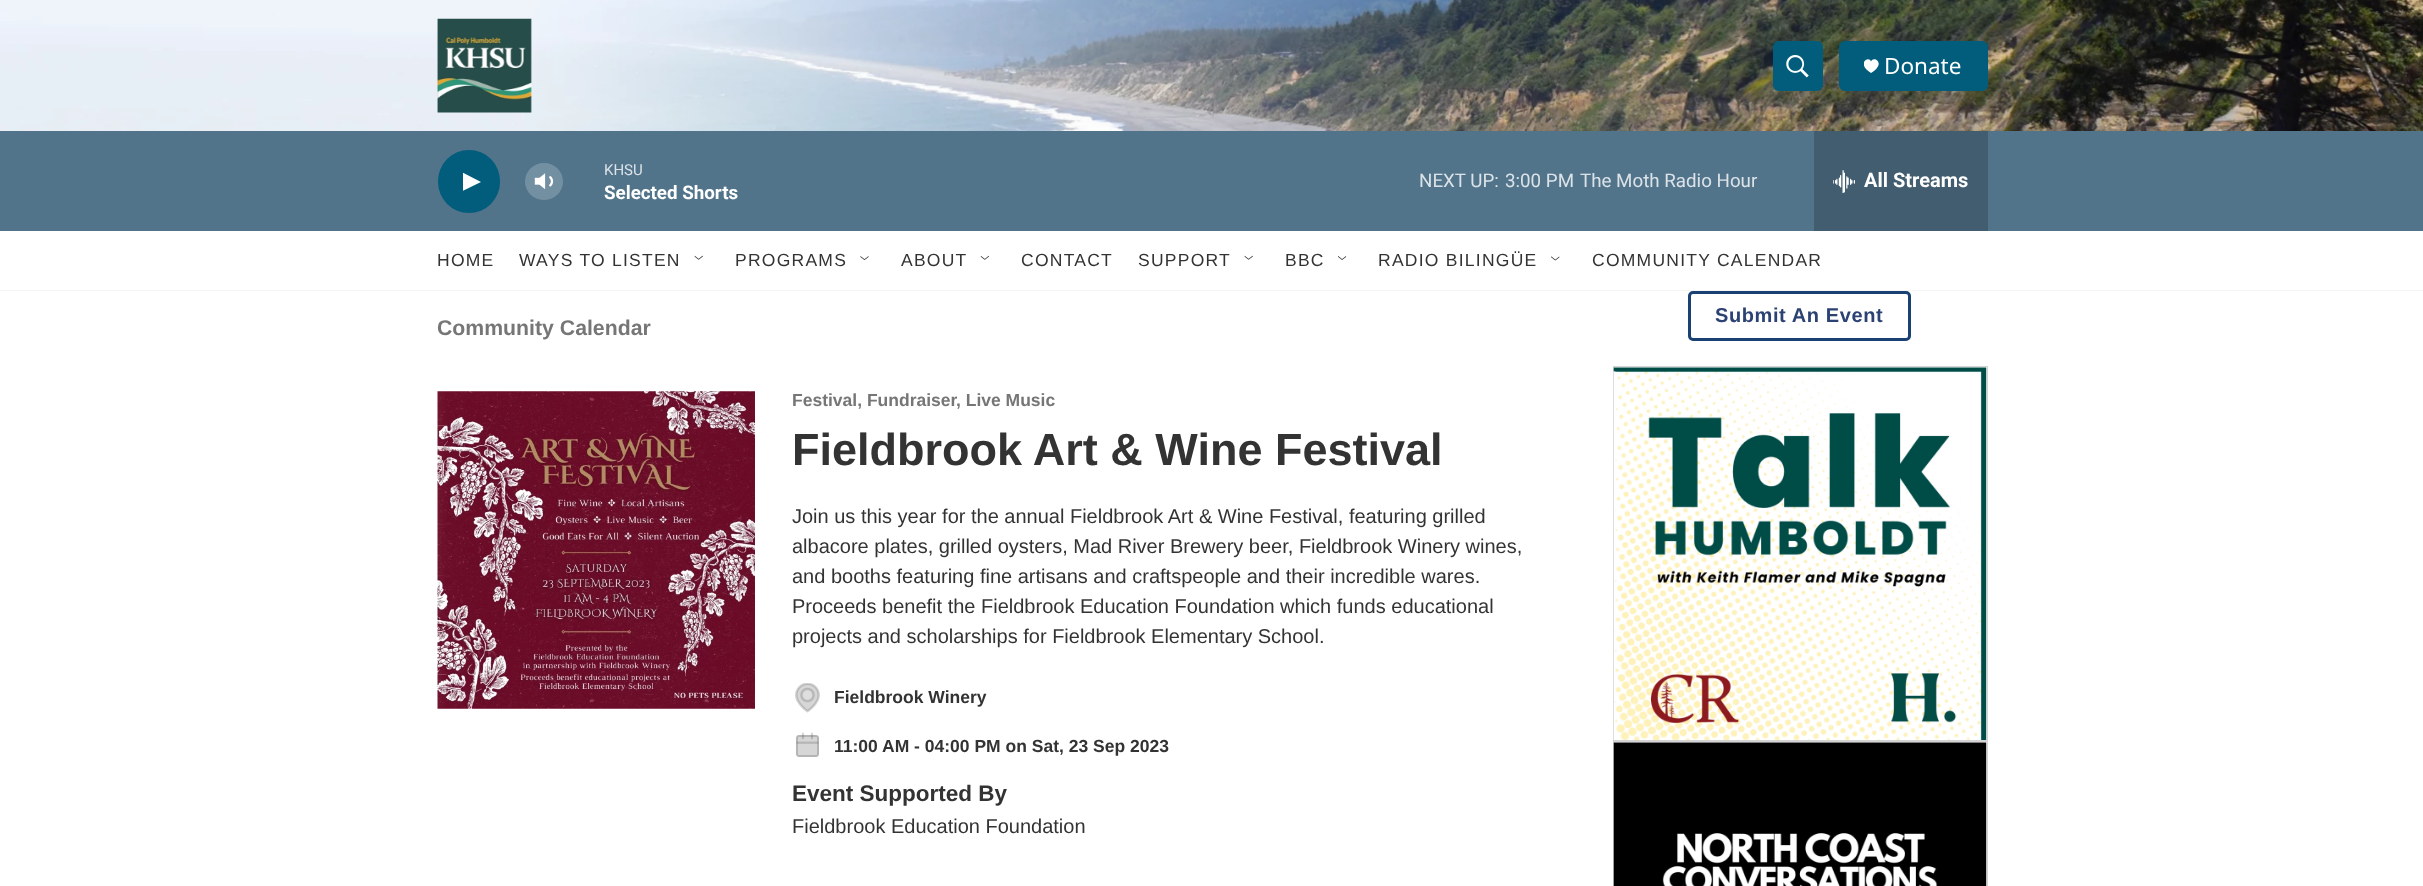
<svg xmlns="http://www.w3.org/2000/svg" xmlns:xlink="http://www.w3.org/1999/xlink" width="2423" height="886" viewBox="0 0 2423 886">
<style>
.cls-1{font:22.5px Noto Sans;fill:#ffffff}
.cls-2{font:15px Roboto;fill:#dce3e8}
.cls-3{font:bold 18.75px Roboto;fill:#ffffff}
.cls-4{font:18.75px Roboto;fill:#dce3e8}
.cls-5{font:bold 20px Roboto;fill:#ffffff}
.cls-6{font:17.5px Liberation Sans;letter-spacing:1.25px;fill:#333333}
.cls-7{font:bold 20px Liberation Sans;letter-spacing:0.6px;fill:#2c4273}
.cls-8{font:bold 21.25px Liberation Sans;fill:#767676}
.cls-9{font:bold 17.5px Liberation Sans;fill:#767676}
.cls-10{font:bold 45px Liberation Sans;fill:#333333}
.cls-11{font:20px Liberation Sans;fill:#333333}
.cls-12{font:bold 17.5px Liberation Sans;fill:#333333}
.cls-13{font:bold 22.5px Liberation Sans;fill:#333333}
</style>
<defs>
<clipPath id="clip1"><rect x="1864" y="59" width="15" height="15"/></clipPath>
<clipPath id="clip2"><rect x="463" y="170" width="18" height="24"/></clipPath>
</defs>
<rect width="100%" height="100%" fill="#ffffff"/>
<rect fill="#f5f5f5" x="0" y="290" width="2423" height="1"/>
<image xlink:href="image0.png" x="0" y="0" width="2423" height="131"/>
<image xlink:href="image1.png" x="437" y="18" width="95" height="95"/>
<rect fill="#015d7b" x="1773" y="41" width="50" height="50" rx="6"/>
<image xlink:href="image2.png" x="1786" y="55" width="23" height="23"/>
<rect fill="#015d7b" x="1839" y="41" width="149" height="50" rx="6"/>
<g clip-path="url(#clip1)">
<path fill="#ffffff" d="M1871 61.5C1869 55 1855.5 63.5 1871 73C1887 63.5 1873.5 55 1871 61.5Z"/>
</g>
<rect fill="#51748b" x="0" y="131" width="2423" height="100"/>
<rect fill="#015d7b" x="438" y="150" width="62" height="63" rx="31"/>
<g clip-path="url(#clip2)">
<path fill="#ffffff" d="M462.5 172.5L481 182L462.5 191Z"/>
</g>
<image xlink:href="image3.png" x="534" y="173" width="20" height="17"/>
<rect fill="#ffffff" fill-opacity="0.2" x="525" y="163" width="38" height="37" rx="18.5"/>
<rect fill="#415d6f" x="1814" y="131" width="174" height="100"/>
<image xlink:href="image4.png" x="1833" y="170" width="22" height="23"/>
<image xlink:href="image5.png" x="694" y="255" width="9" height="5"/>
<image xlink:href="image6.png" x="860" y="256" width="9" height="4"/>
<image xlink:href="image7.png" x="980" y="255" width="9" height="5"/>
<image xlink:href="image8.png" x="1244" y="255" width="9" height="5"/>
<image xlink:href="image9.png" x="1338" y="256" width="9" height="4"/>
<image xlink:href="image10.png" x="1551" y="256" width="9" height="5"/>
<rect fill="none" stroke="#194173" stroke-width="3" x="1689.5" y="292.5" width="220" height="47" rx="3.5"/>
<rect fill="none" stroke="#d3d3d3" x="1613.5" y="366.5" width="374" height="374"/>
<image xlink:href="image11.png" x="1613" y="367" width="374" height="373"/>
<rect fill="none" stroke="#d3d3d3" x="1613.5" y="741.5" width="374" height="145"/>
<image xlink:href="image12.png" x="1613" y="742" width="374" height="144"/>
<image xlink:href="image13.png" x="437" y="391" width="318" height="318"/>
<image xlink:href="image14.png" x="795" y="683" width="25" height="30"/>
<image xlink:href="image15.png" x="796" y="732" width="23" height="25"/>
<text class="cls-1" x="1884" y="74">Donate</text>
<text class="cls-2" x="604" y="175">KHSU</text>
<text class="cls-3" x="604" y="199">Selected Shorts</text>
<text class="cls-4" x="1419" y="187">NEXT UP:</text>
<text class="cls-4" x="1505" y="187">3:00 PM</text>
<text class="cls-4" x="1580" y="187">The Moth Radio Hour</text>
<text class="cls-5" x="1864" y="187">All Streams</text>
<text class="cls-6" x="437" y="266">HOME</text>
<text class="cls-6" x="519" y="266">WAYS TO LISTEN</text>
<text class="cls-6" x="735" y="266">PROGRAMS</text>
<text class="cls-6" x="901" y="266">ABOUT</text>
<text class="cls-6" x="1021" y="266">CONTACT</text>
<text class="cls-6" x="1138" y="266">SUPPORT</text>
<text class="cls-6" x="1285" y="266">BBC</text>
<text class="cls-6" x="1378" y="266">RADIO BILINGÜE</text>
<text class="cls-6" x="1592" y="266">COMMUNITY CALENDAR</text>
<text class="cls-7" x="1715" y="322">Submit An Event</text>
<text class="cls-8" x="437" y="335">Community Calendar</text>
<text class="cls-9" x="792" y="406">Festival, Fundraiser</text>
<text class="cls-9" x="956" y="406">, Live Music</text>
<text class="cls-10" x="792" y="465">Fieldbrook Art &amp; Wine Festival</text>
<text class="cls-11"><tspan x="792" y="523">Join us this year for the annual Fieldbrook Art &amp; Wine Festival, featuring grilled</tspan><tspan x="792" y="553">albacore plates, grilled oysters, Mad River Brewery beer, Fieldbrook Winery wines,</tspan><tspan x="792" y="583">and booths featuring fine artisans and craftspeople and their incredible wares.</tspan><tspan x="792" y="613">Proceeds benefit the Fieldbrook Education Foundation which funds educational</tspan><tspan x="792" y="643">projects and scholarships for Fieldbrook Elementary School.</tspan></text>
<text class="cls-12" x="834" y="703">Fieldbrook Winery</text>
<text class="cls-12" x="834" y="752">11:00 AM - 04:00 PM on Sat, 23 Sep 2023</text>
<text class="cls-13" x="792" y="801">Event Supported By</text>
<text class="cls-11" x="792" y="833">Fieldbrook Education Foundation</text>
</svg>
